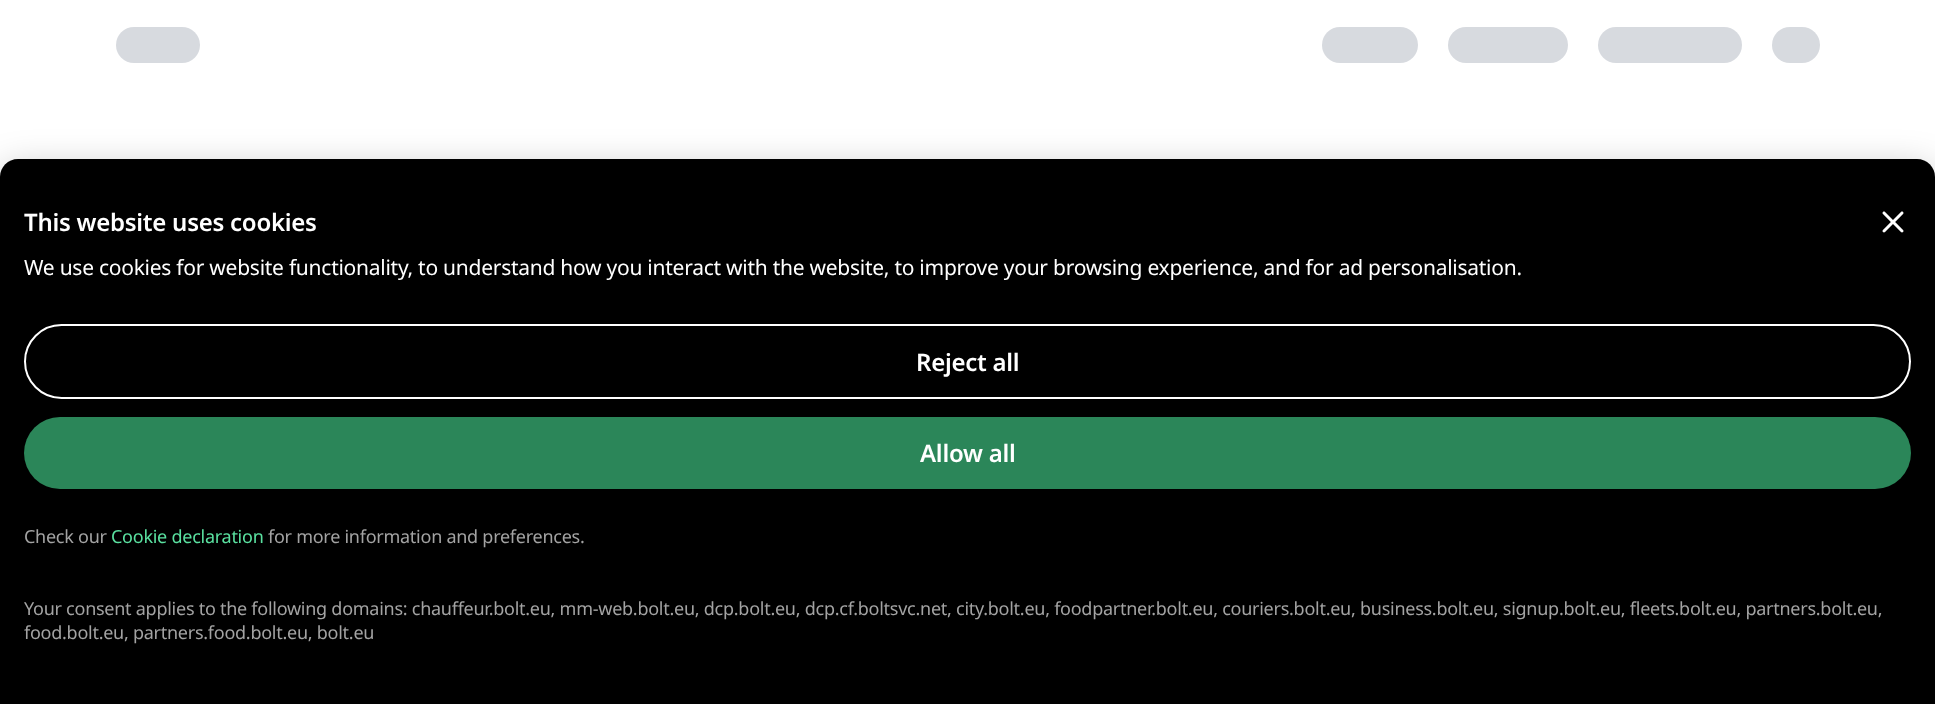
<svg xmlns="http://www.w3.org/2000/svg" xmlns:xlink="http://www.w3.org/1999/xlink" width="1935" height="704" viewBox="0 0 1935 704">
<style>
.cls-1{font:600 24px Noto Sans;letter-spacing:-0.26px;fill:#ffffff}
.cls-2{font:21px Noto Sans;letter-spacing:-0.26px;fill:#ffffff}
.cls-3{font:18px Noto Sans;letter-spacing:-0.26px;fill:#a3a3a3}
.cls-4{font:18px Noto Sans;letter-spacing:-0.26px;fill:#5ae1a0}
</style>
<rect width="100%" height="100%" fill="#ffffff"/>
<rect fill="#d7dadf" x="116" y="27" width="84" height="36" rx="18"/>
<rect fill="#d7dadf" x="1322" y="27" width="96" height="36" rx="18"/>
<rect fill="#d7dadf" x="1448" y="27" width="120" height="36" rx="18"/>
<rect fill="#d7dadf" x="1598" y="27" width="144" height="36" rx="18"/>
<rect fill="#d7dadf" x="1772" y="27" width="48" height="36" rx="18"/>
<rect fill="#000000" fill-opacity="0.24" filter="blur(18px)" x="0" y="168" width="1935" height="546" rx="18"/>
<path fill="#000000" d="M18 159H1917C1927 159 1935 167 1935 177V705H0V177C0 167 8 159 18 159Z"/>
<image xlink:href="image0.png" x="1882" y="211" width="22" height="22"/>
<rect fill="none" stroke="#ffffff" stroke-width="2" x="25" y="325" width="1885" height="73" rx="36.5"/>
<rect fill="#2b8659" x="24" y="417" width="1887" height="72" rx="36"/>
<text class="cls-1" x="24" y="231">This website uses cookies</text>
<text class="cls-2" x="24" y="275">We use cookies for website functionality, to understand how you interact with the website, to improve your browsing experience, and for ad personalisation.</text>
<text class="cls-1" x="916" y="371">Reject all</text>
<text class="cls-1" x="920" y="462">Allow all</text>
<text class="cls-3" x="24" y="543">Check our</text>
<text class="cls-4" x="111" y="543">Cookie declaration</text>
<text class="cls-3" x="268" y="543">for more information and preferences.</text>
<text class="cls-3"><tspan x="24" y="615">Your consent applies to the following domains: chauffeur.bolt.eu, mm-web.bolt.eu, dcp.bolt.eu, dcp.cf.boltsvc.net, city.bolt.eu, foodpartner.bolt.eu, couriers.bolt.eu, business.bolt.eu, signup.bolt.eu, fleets.bolt.eu, partners.bolt.eu,</tspan><tspan x="24" y="639">food.bolt.eu, partners.food.bolt.eu, bolt.eu</tspan></text>
</svg>
